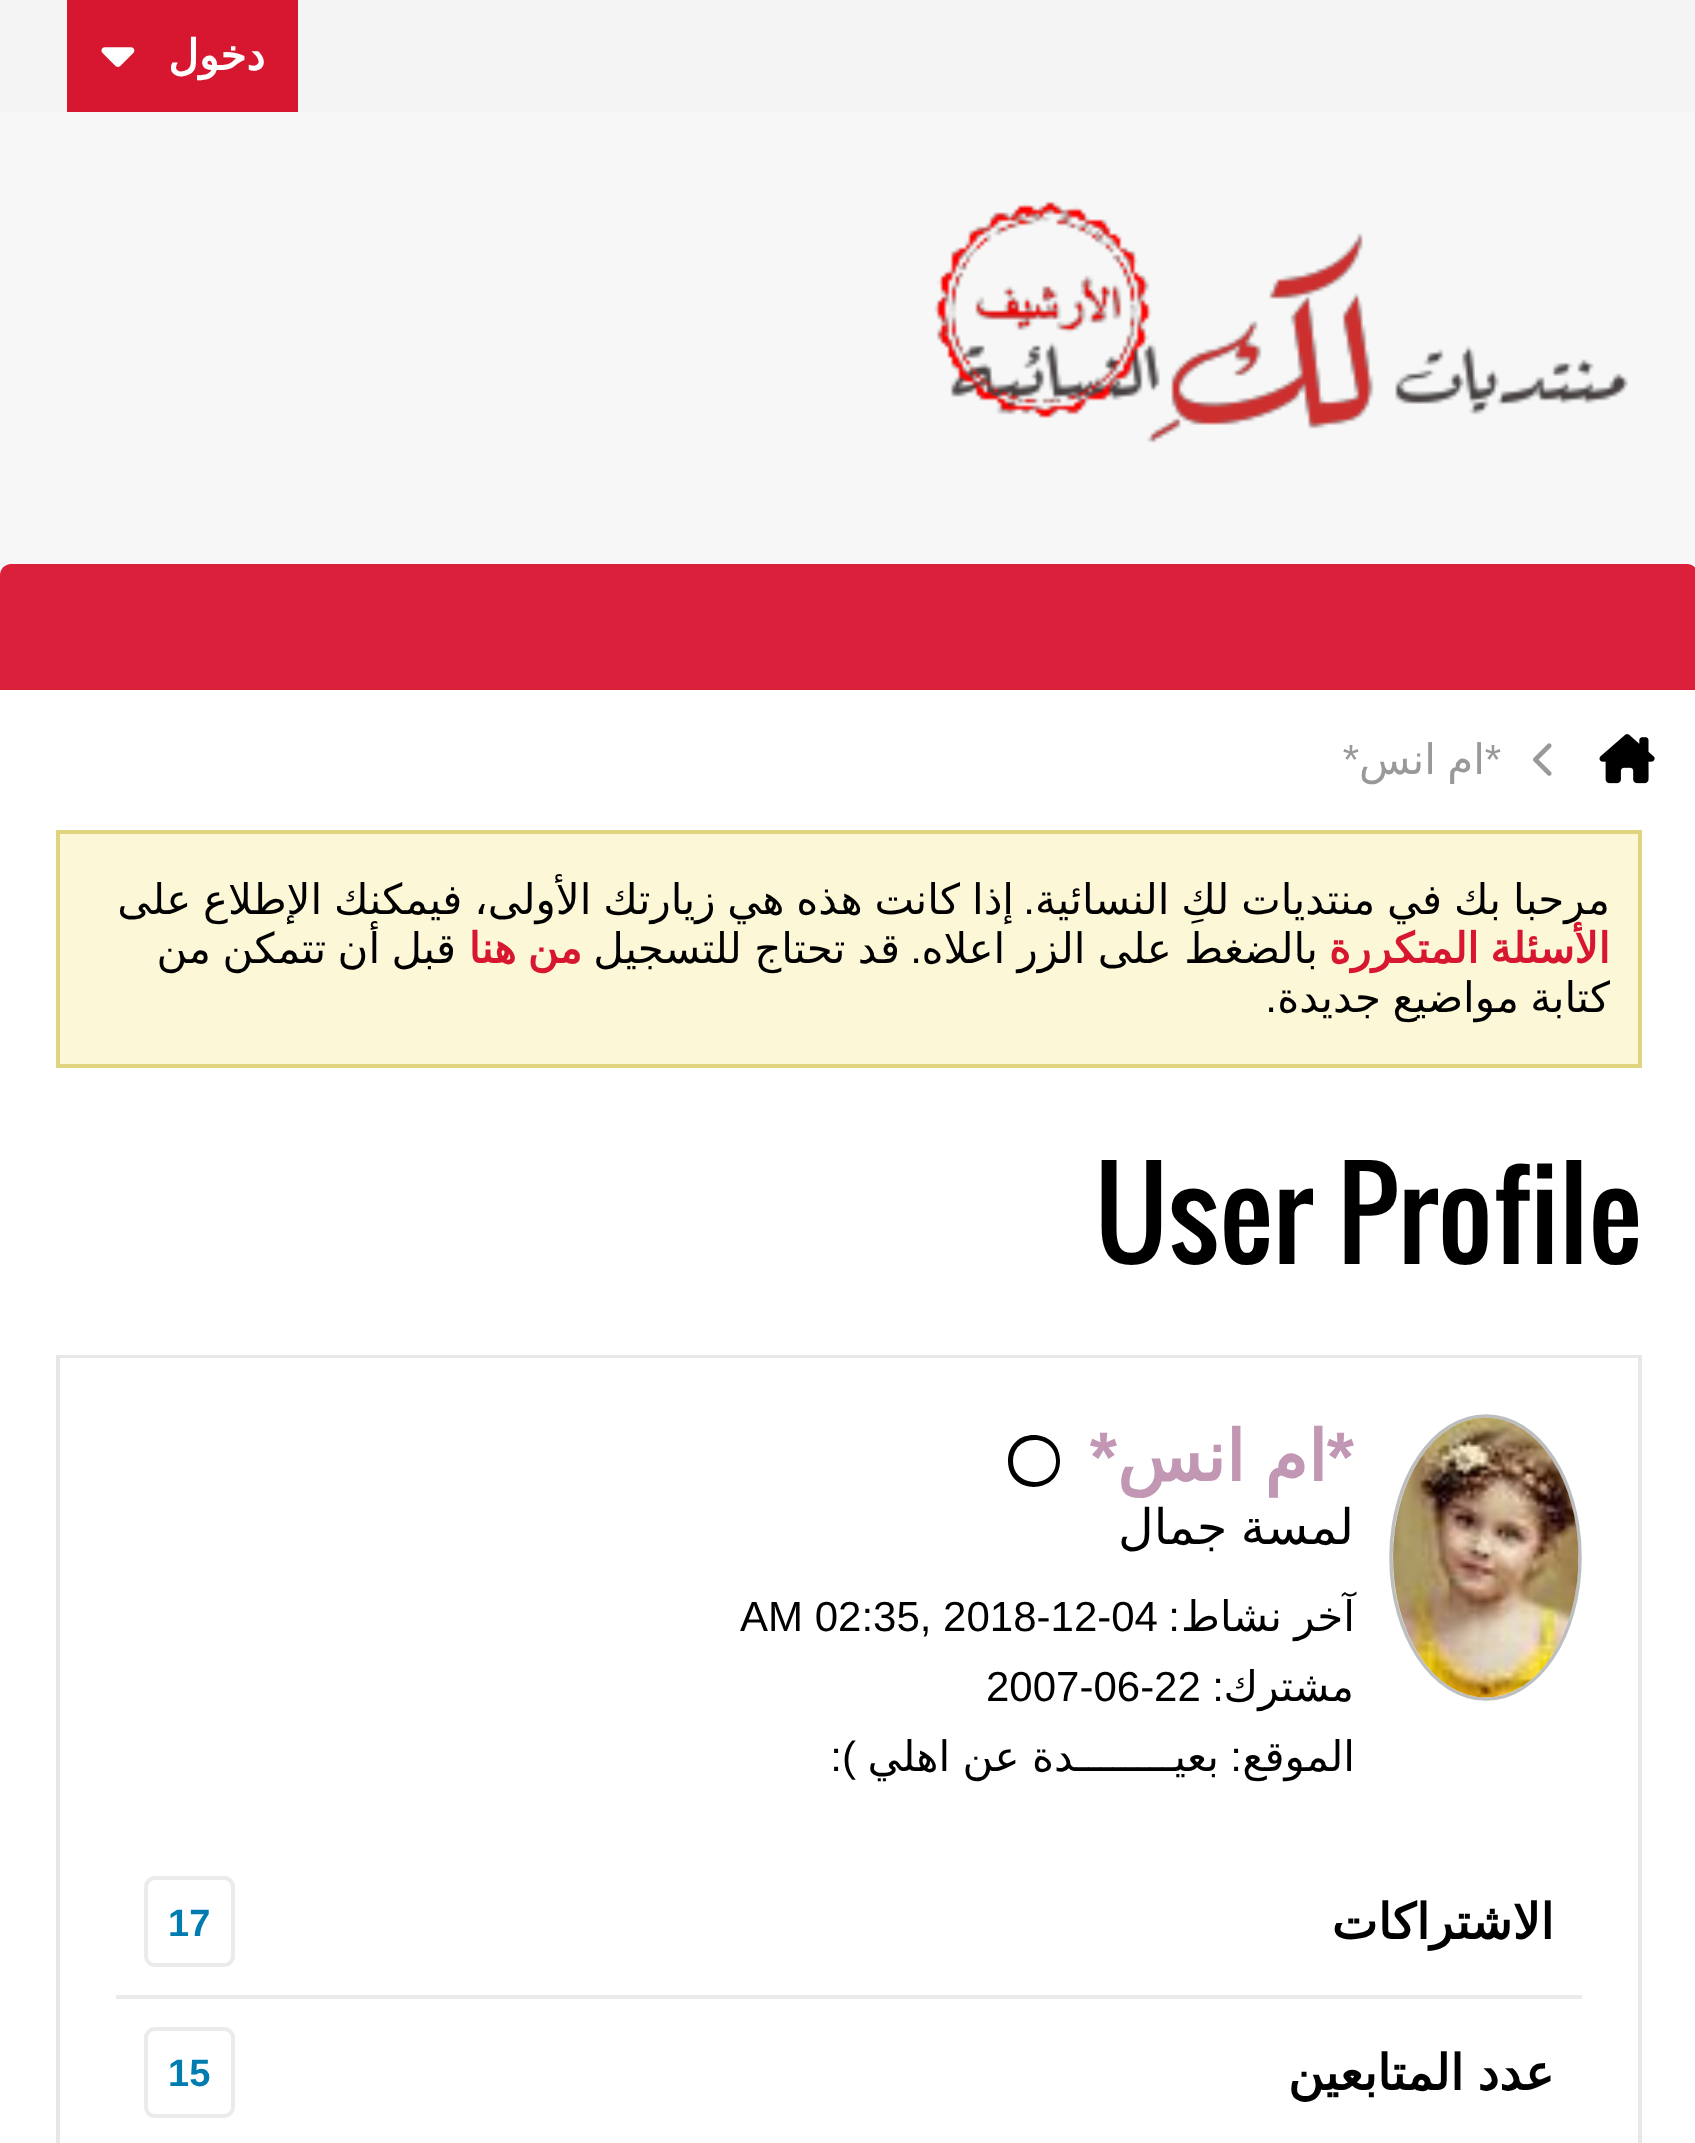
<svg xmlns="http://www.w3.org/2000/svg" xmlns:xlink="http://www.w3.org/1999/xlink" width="1695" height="2143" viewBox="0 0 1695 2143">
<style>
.cls-1{font:bold 42px DejaVu Sans;direction:rtl;fill:#ffffff}
.cls-2{font:42px Liberation Sans;direction:rtl;fill:#999999}
.cls-3{font:42px DejaVu Sans;direction:rtl;fill:#999999}
.cls-4{font:42px DejaVu Sans;direction:rtl;fill:#000000}
.cls-5{font:42px Liberation Sans;direction:rtl;fill:#000000}
.cls-6{font:bold 42px DejaVu Sans;direction:rtl;fill:#d71730}
.cls-7{font:119px Oswald;fill:#000000}
.cls-8{font:bold 70px Liberation Sans;direction:rtl;fill:#c197b4}
.cls-9{font:bold 70px DejaVu Sans;direction:rtl;fill:#c197b4}
.cls-10{font:49px DejaVu Sans;direction:rtl;fill:#000000}
.cls-11{font:42px Liberation Sans;fill:#000000}
.cls-12{font:bold 49px DejaVu Sans;direction:rtl;fill:#000000}
.cls-13{font:bold 38px Liberation Sans;fill:#007cb0}
</style>
<rect width="100%" height="100%" fill="#f7f7f7"/>
<rect fill="#f5f4f4" x="0" y="0" width="1695" height="112"/>
<rect fill="#d71730" x="67" y="0" width="231" height="112"/>
<image xlink:href="image0.png" x="101" y="47" width="34" height="20"/>
<image xlink:href="image1.png" x="934" y="201" width="694" height="242"/>
<path fill="#db203b" d="M11 564H1687C1693 564 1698 569 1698 575V690H0V575C0 569 5 564 11 564Z"/>
<rect fill="#ffffff" x="0" y="690" width="1695" height="1453"/>
<image xlink:href="image2.png" x="1599" y="734" width="56" height="50"/>
<image xlink:href="image3.png" x="1533" y="743" width="19" height="33"/>
<rect fill="#fcf7d7" stroke="#e1d47e" stroke-width="4" x="58" y="832" width="1582" height="234"/>
<rect fill="none" stroke="#e7e7e7" stroke-width="4" x="58" y="1357" width="1582" height="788"/>
<rect fill="#ffffff" x="60" y="1358" width="1578" height="1"/>
<path fill="none" stroke="#bcbec0" stroke-width="3.5" d="M1486 1416C1538 1416 1580 1479 1580 1557.5C1580 1636 1538 1699 1486 1699C1433.5 1699 1391 1636 1391 1557.5C1391 1479 1433.5 1416 1486 1416Z"/>
<image xlink:href="image4.png" x="1393" y="1417" width="186" height="281"/>
<path fill="#000000" d="M1056 1461C1056 1433 1013 1433 1013 1461C1013 1489 1056 1489 1056 1461ZM1008 1461C1008 1426 1060 1427 1060 1461C1060 1495 1008 1496 1008 1461Z"/>
<rect fill="#eceaea" x="116" y="1995" width="1466" height="4"/>
<rect fill="none" stroke="#eceaea" stroke-width="4" x="146" y="1878" width="87" height="87" rx="9"/>
<rect fill="none" stroke="#eceaea" stroke-width="4" x="146" y="2029" width="87" height="87" rx="9"/>
<text class="cls-1" x="265" y="70">دخول</text>
<text class="cls-2" x="1501" y="774">*</text>
<text class="cls-3" x="1485" y="774" word-spacing="-2">ام انس</text>
<text class="cls-2" x="1359" y="774">*</text>
<text class="cls-4" x="1610" y="914" word-spacing="-1.5">مرحبا بك في منتديات لكِ النسائية</text>
<text class="cls-5" x="1035" y="914">.</text>
<text class="cls-4" x="1014" y="914" word-spacing="-1.5">إذا كانت هذه هي زيارتك الأولى، فيمكنك الإطلاع على</text>
<text class="cls-6" x="1610" y="963" word-spacing="-2">الأسئلة المتكررة</text>
<text class="cls-4" x="1318" y="963" word-spacing="-1">بالضغط على الزر اعلاه</text>
<text class="cls-5" x="922" y="963">.</text>
<text class="cls-4" x="900" y="963" word-spacing="-1">قد تحتاج للتسجيل</text>
<text class="cls-6" x="582" y="963" word-spacing="-2">من هنا</text>
<text class="cls-4" x="456" y="963" word-spacing="-2">قبل أن تتمكن من</text>
<text class="cls-4" x="1610" y="1012" word-spacing="-2">كتابة مواضيع جديدة</text>
<text class="cls-5" x="1277" y="1012">.</text>
<text class="cls-7" x="1095" y="1264">User Profile</text>
<text class="cls-8" x="1354" y="1481">*</text>
<text class="cls-9" x="1327" y="1481" word-spacing="-3">ام انس</text>
<text class="cls-8" x="1117" y="1481">*</text>
<text class="cls-10" x="1354" y="1544" word-spacing="-2">لمسة جمال</text>
<text class="cls-4" x="1355" y="1631" word-spacing="-1">آخر نشاط</text>
<text class="cls-5" x="1180" y="1631">:</text>
<text class="cls-11" x="740" y="1631">AM 02:35, 2018-12-04</text>
<text class="cls-4" x="1354" y="1701">مشترك</text>
<text class="cls-5" x="1224" y="1701">:</text>
<text class="cls-11" x="986" y="1701">2007-06-22</text>
<text class="cls-4" x="1355" y="1771">الموقع</text>
<text class="cls-5" x="1242" y="1771">:</text>
<text class="cls-4" x="1219" y="1771" word-spacing="-1">بعيــــــــدة عن اهلي</text>
<text class="cls-5" x="856" y="1771">):</text>
<text class="cls-12" x="1554" y="1939">الاشتراكات</text>
<text class="cls-13" x="168" y="1936">17</text>
<text class="cls-12" x="1554" y="2090" word-spacing="-2">عدد المتابعين</text>
<text class="cls-13" x="168" y="2086">15</text>
</svg>
